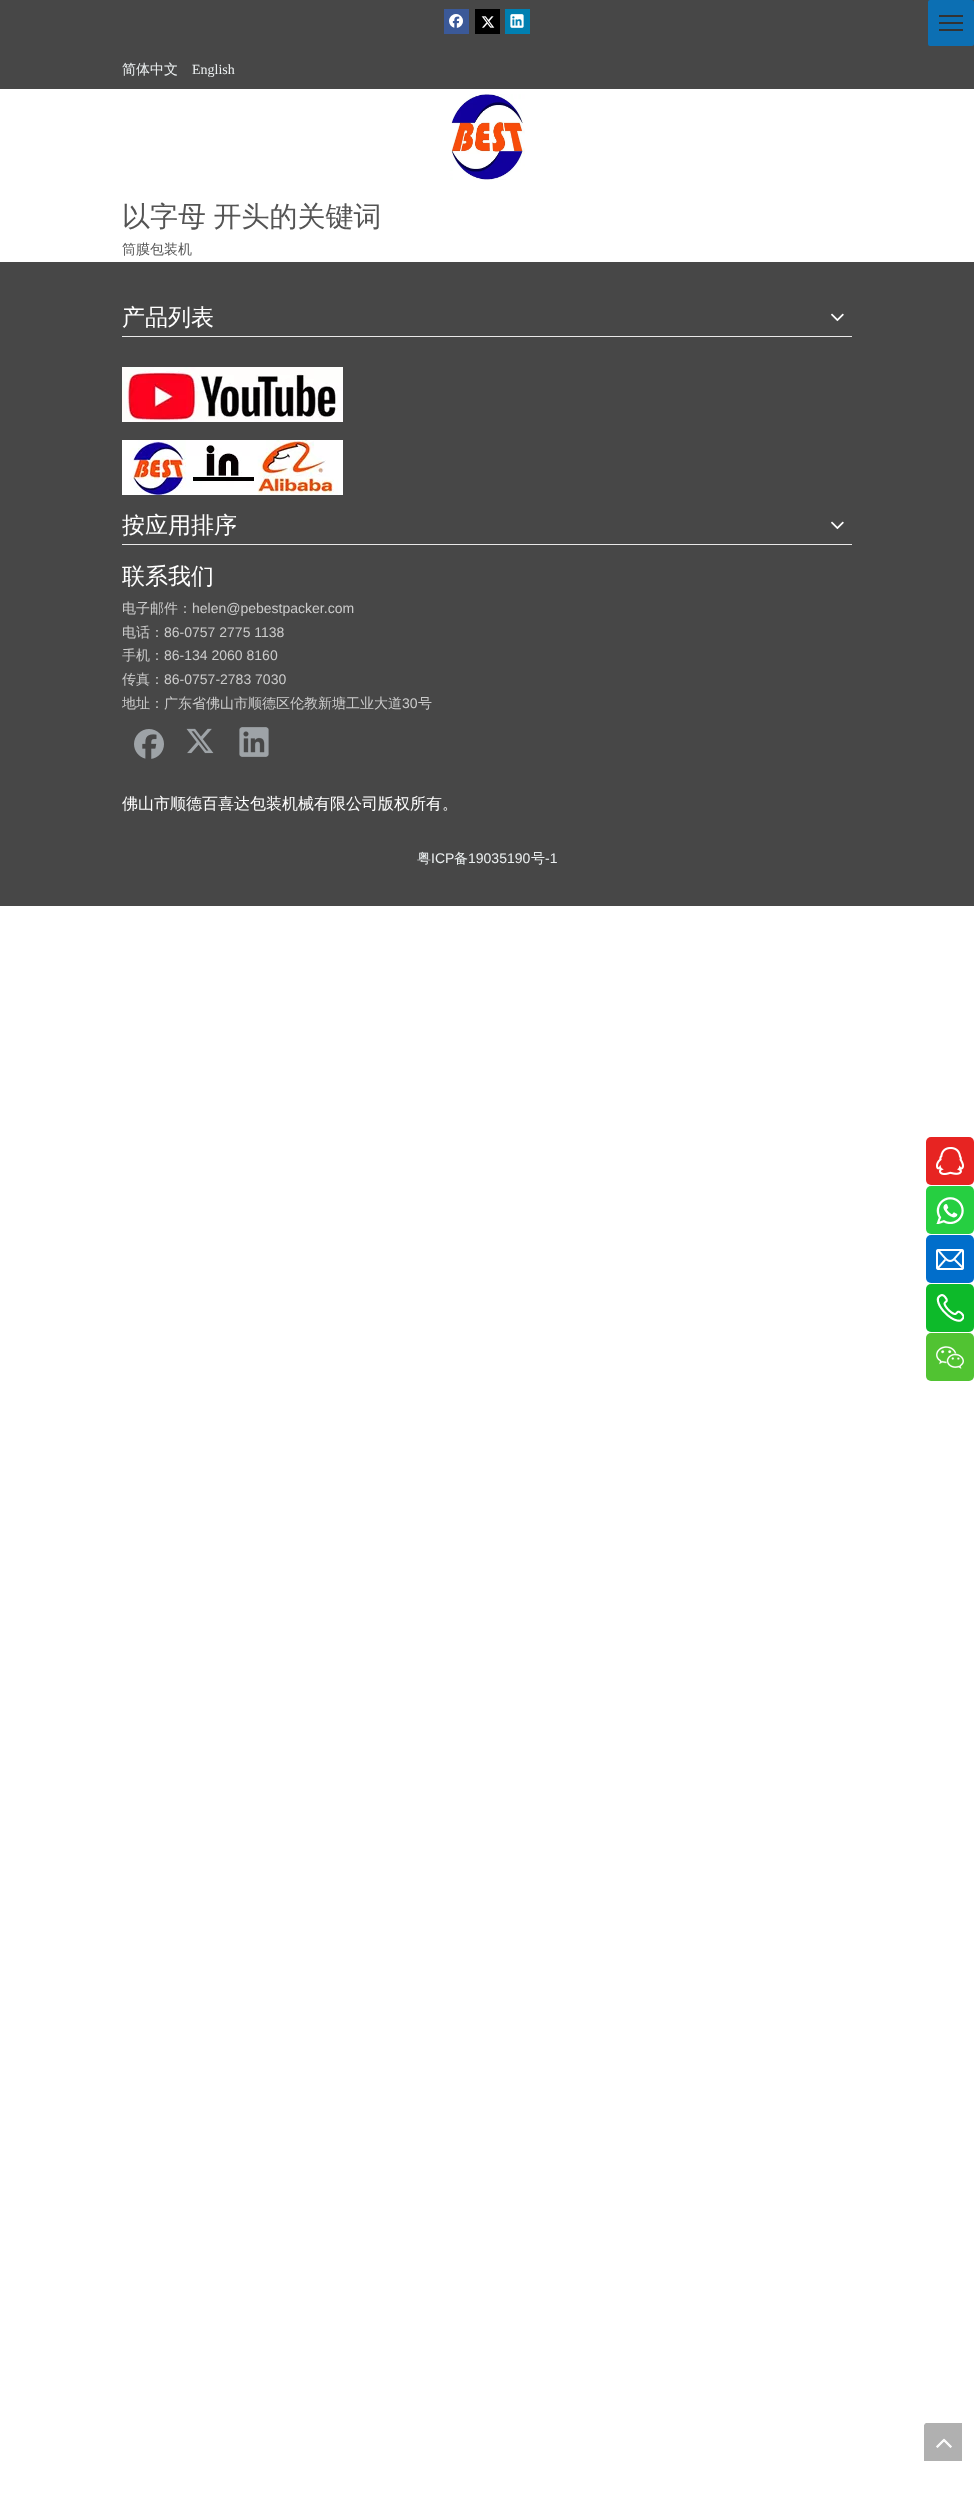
<svg xmlns="http://www.w3.org/2000/svg" xmlns:xlink="http://www.w3.org/1999/xlink" width="974" height="2517" viewBox="0 0 974 2517">
<style>
.cls-1{font:500 14px WenQuanYi Zen Hei;fill:#ecf0f1}
.cls-2{font:14px Liberation Serif;fill:#ecf0f1}
.cls-3{font:500 28px WenQuanYi Zen Hei;fill:#545454}
.cls-4{font:500 14px WenQuanYi Zen Hei;fill:#545454}
.cls-5{font:500 23px WenQuanYi Zen Hei;fill:#ffffff}
.cls-6{font:500 14px WenQuanYi Zen Hei;fill:#cccccc}
.cls-7{font:14px Liberation Sans;fill:#cccccc}
.cls-8{font:500 16px WenQuanYi Zen Hei;fill:#ffffff}
.cls-9{font:14px Liberation Sans;fill:#ecf0f1}
</style>
<rect width="100%" height="100%" fill="#ffffff"/>
<rect fill="#474747" x="0" y="0" width="974" height="89"/>
<rect fill="#3b5998" x="444" y="9" width="25" height="25"/>
<image xlink:href="image0.png" x="449" y="14" width="14" height="14"/>
<rect fill="#000000" x="475" y="9" width="25" height="25"/>
<image xlink:href="image1.png" x="481" y="16" width="14" height="12"/>
<rect fill="#007fb1" x="505" y="9" width="25" height="25"/>
<image xlink:href="image2.png" x="510" y="14" width="14" height="14"/>
<rect fill="#0c6fb3" x="928" y="0" width="46" height="46" rx="2"/>
<rect fill="#333333" x="939" y="15" width="24" height="2"/>
<rect fill="#333333" x="939" y="22" width="24" height="2"/>
<rect fill="#333333" x="939" y="29" width="24" height="2"/>
<image xlink:href="image3.png" x="450" y="94" width="75" height="86"/>
<rect fill="#474747" x="0" y="262" width="974" height="644"/>
<rect fill="#eae9e9" x="122" y="336" width="730" height="1"/>
<image xlink:href="image4.png" x="831" y="313" width="13" height="9"/>
<image xlink:href="image5.png" x="122" y="367" width="221" height="55"/>
<image xlink:href="image6.png" x="122" y="440" width="221" height="55"/>
<rect fill="#eae9e9" x="122" y="544" width="730" height="1"/>
<image xlink:href="image4.png" x="831" y="521" width="13" height="9"/>
<image xlink:href="image7.png" x="134" y="729" width="30" height="30"/>
<image xlink:href="image8.png" x="186" y="728" width="28" height="26"/>
<image xlink:href="image9.png" x="239" y="727" width="30" height="30"/>
<rect fill="#e72422" x="926" y="1137" width="48" height="48" rx="5"/>
<image xlink:href="image10.png" x="936" y="1147" width="28" height="28"/>
<rect fill="#26cf41" x="926" y="1186" width="48" height="48" rx="5"/>
<image xlink:href="image11.png" x="936" y="1197" width="28" height="27"/>
<rect fill="#016ecb" x="926" y="1235" width="48" height="48" rx="5"/>
<image xlink:href="image12.png" x="936" y="1249" width="28" height="21"/>
<rect fill="#0dba2a" x="926" y="1284" width="48" height="48" rx="5"/>
<image xlink:href="image13.png" x="936" y="1294" width="28" height="28"/>
<rect fill="#51c332" x="926" y="1333" width="48" height="48" rx="5"/>
<image xlink:href="image14.png" x="936" y="1346" width="28" height="23"/>
<image xlink:href="image15.png" x="924" y="2423" width="38" height="38"/>
<text class="cls-1" x="122" y="74">简体中文</text>
<text class="cls-2" x="192" y="74">English</text>
<text class="cls-3" x="122" y="226" word-spacing="-1">以字母 开头的关键词</text>
<text class="cls-4" x="122" y="254">筒膜包装机</text>
<text class="cls-5" x="122" y="325">产品列表</text>
<text class="cls-5" x="122" y="533">按应用排序</text>
<text class="cls-5" x="122" y="584">联系我们</text>
<text class="cls-6" x="122" y="613">电子邮件：</text>
<text class="cls-7" x="192" y="613">helen@pebestpacker.com</text>
<text class="cls-6" x="122" y="637">电话：</text>
<text class="cls-7" x="164" y="637">86-0757 2775 1138</text>
<text class="cls-6" x="122" y="660">手机：</text>
<text class="cls-7" x="164" y="660">86-134 2060 8160</text>
<text class="cls-6" x="122" y="684">传真：</text>
<text class="cls-7" x="164" y="684">86-0757-2783 7030</text>
<text class="cls-6" x="122" y="708">地址：广东省佛山市顺德区伦教新塘工业大道</text>
<text class="cls-7" x="402" y="708">30</text>
<text class="cls-6" x="418" y="708">号</text>
<text class="cls-8" x="122" y="809">佛山市顺德百喜达包装机械有限公司版权所有。</text>
<text class="cls-1" x="417" y="863">粤</text>
<text class="cls-9" x="431" y="863">ICP</text>
<text class="cls-1" x="454" y="863">备</text>
<text class="cls-9" x="468" y="863">19035190</text>
<text class="cls-1" x="531" y="863">号</text>
<text class="cls-9" x="545" y="863">-1</text>
</svg>
